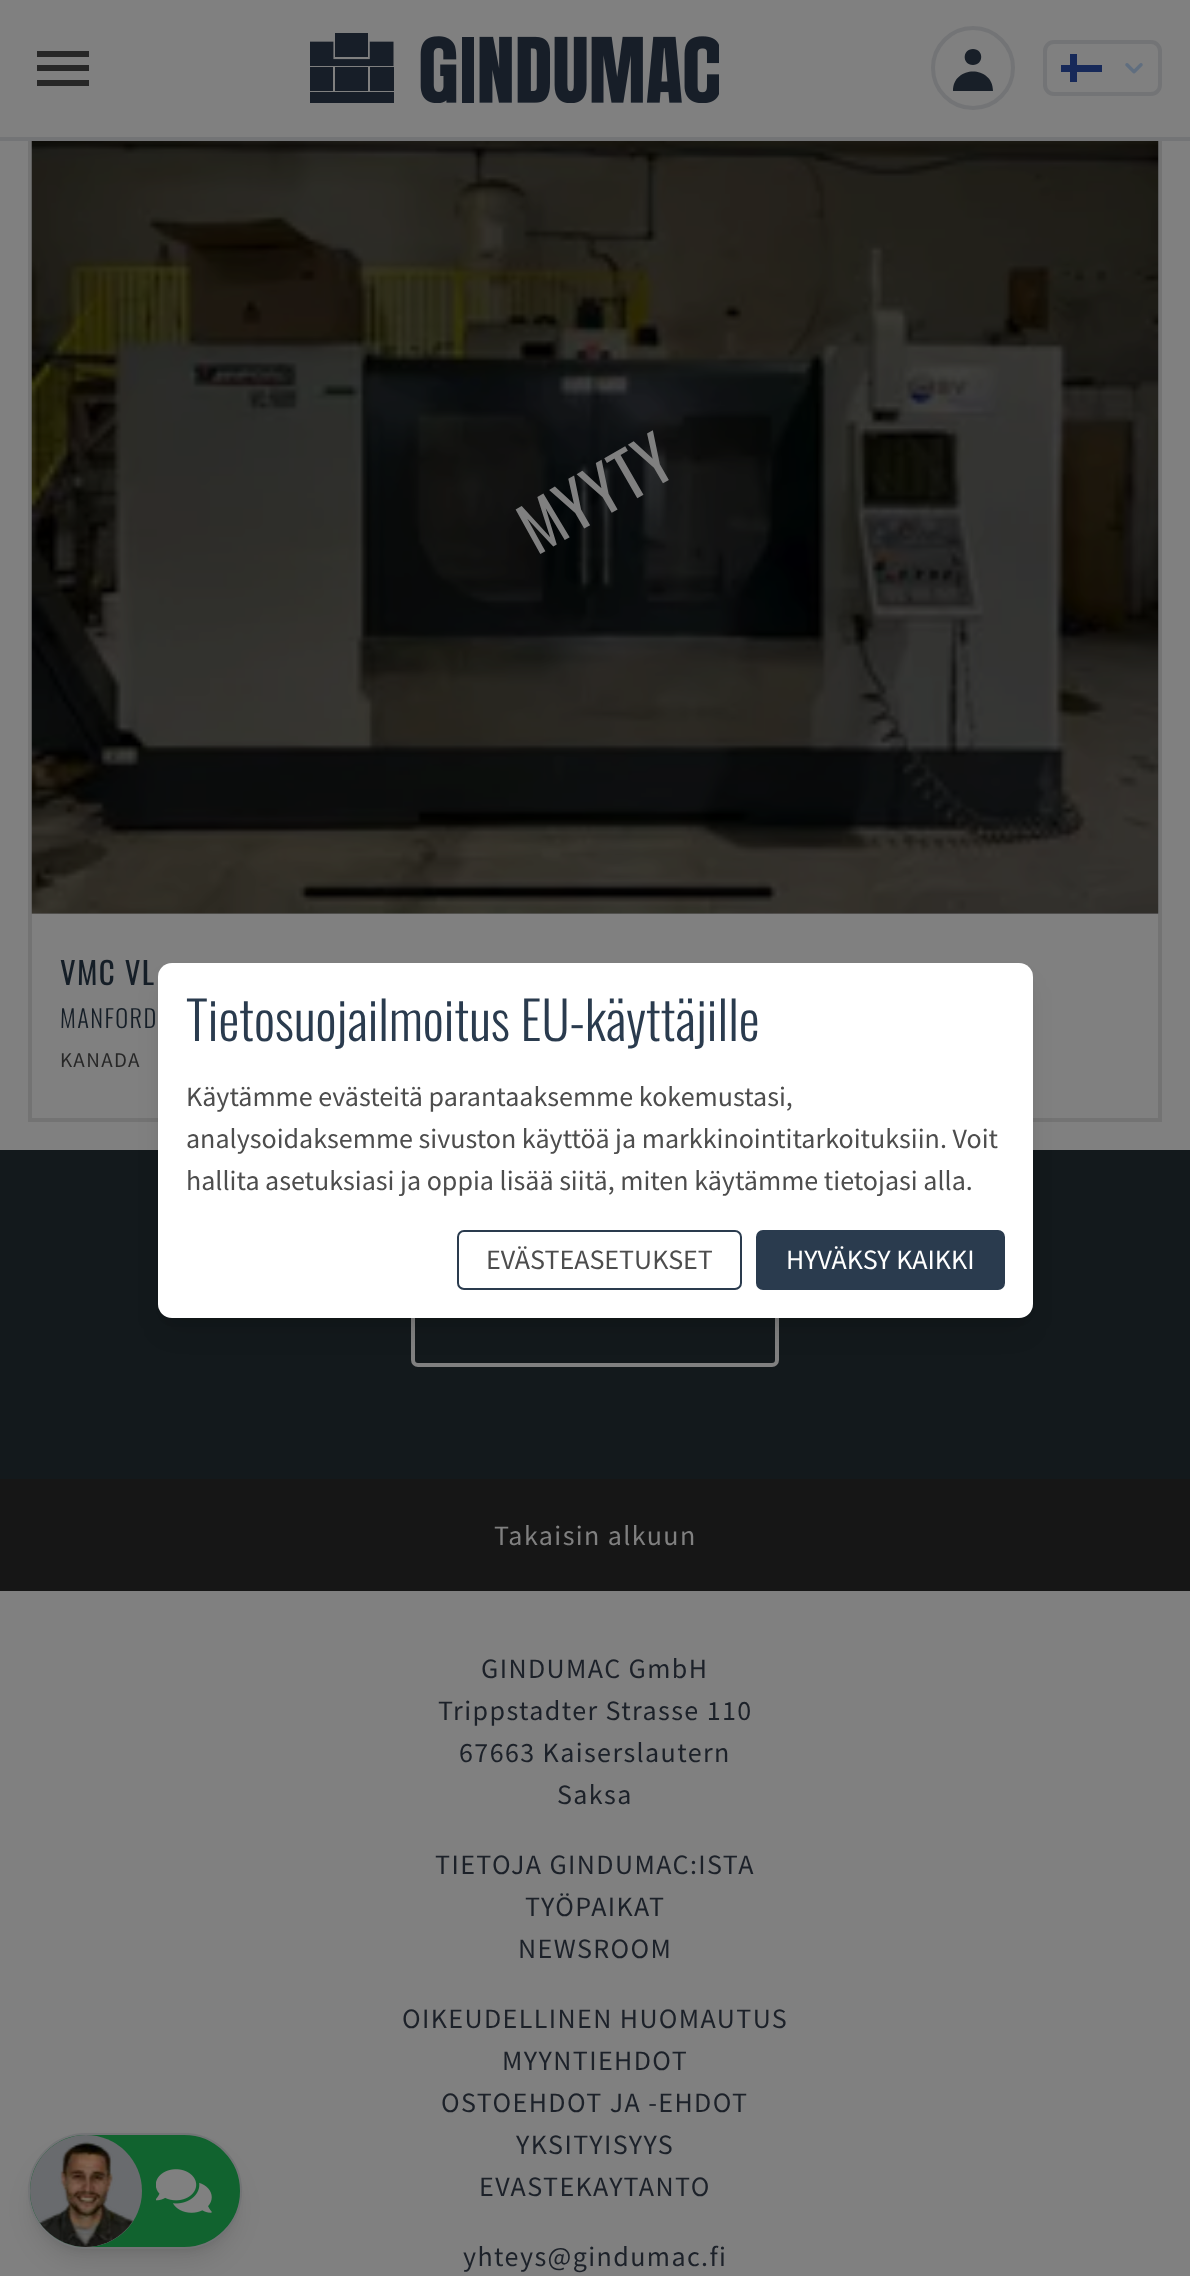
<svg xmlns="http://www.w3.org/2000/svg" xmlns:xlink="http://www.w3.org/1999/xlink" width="1190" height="2276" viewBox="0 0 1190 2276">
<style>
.cls-1{font:63px Oswald;letter-spacing:1.4px;fill:#808080}
.cls-2{font:31px Oswald;letter-spacing:1.4px;fill:#151e27}
.cls-3{font:300 24.5px Oswald;letter-spacing:1.4px;fill:#151e27}
.cls-4{font:21px Source Sans Pro;letter-spacing:1.4px;fill:#272727}
.cls-5{font:28px Source Sans Pro;letter-spacing:1.4px;fill:#808080}
.cls-6{font:28px Source Sans Pro;letter-spacing:1.4px;fill:#1c2129}
.cls-7{font:300 52.5px Oswald;fill:#2a3b4e}
.cls-8{font:28px Source Sans Pro;fill:#4d4d4d}
.cls-9{font:28px Source Sans Pro;fill:#ffffff}
</style>
<defs>
<clipPath id="clip1"><rect x="1061" y="54" width="42" height="28"/></clipPath>
</defs>
<rect width="100%" height="100%" fill="#808080"/>
<rect fill="none" stroke="#737373" stroke-width="4" x="30" y="67" width="1130" height="1053"/>
<rect fill="#808080" x="28" y="65" width="1134" height="72"/>
<rect fill="#737476" x="0" y="137" width="1190" height="4"/>
<path fill="#272727" d="M37 86H89V80H37ZM37 71H89V65H37ZM37 51V57H89V51Z"/>
<image xlink:href="image0.png" x="310" y="33" width="409" height="70"/>
<circle fill="none" stroke="#737476" stroke-width="4" cx="973" cy="68" r="40"/>
<path fill="#181f28" fill-rule="evenodd" d="M973 65C984 65 984 49 973 49C962 49 962 65 973 65ZM953 91C953 65 993 65 993 91Z"/>
<rect fill="none" stroke="#737476" stroke-width="4" x="1045" y="42" width="115" height="52" rx="9"/>
<g clip-path="url(#clip1)">
<path fill="#172959" d="M1102 65V72H1077V82H1070V72H1060V65H1070V54H1077V65Z"/>
</g>
<image xlink:href="image1.png" x="1125" y="63" width="18" height="11"/>
<rect fill="#737476" x="32" y="141" width="1127" height="773"/>
<image xlink:href="image2.png" x="31" y="141" width="1128" height="773"/>
<rect fill="#000000" fill-opacity="0.1" filter="blur(5px)" x="35" y="2147" width="200" height="102" rx="51"/>
<rect fill="#000000" fill-opacity="0.1" filter="blur(13px)" x="33" y="2156" width="203" height="105" rx="52.5"/>
<rect fill="#11632f" stroke="#737476" stroke-width="2" x="29" y="2134" width="212" height="114" rx="57"/>
<circle fill="#696b6e" cx="86" cy="2191" r="56"/>
<image xlink:href="image3.png" x="39" y="2141" width="94" height="106"/>
<image xlink:href="image4.png" x="156" y="2169" width="56" height="44"/>
<rect fill="#13191c" x="0" y="1150" width="1190" height="329"/>
<rect fill="none" stroke="#808080" stroke-width="4" x="413" y="1264" width="364" height="101" rx="5"/>
<rect fill="#161616" x="0" y="1479" width="1190" height="112"/>
<rect fill="#000000" fill-opacity="0.1" filter="blur(5px)" x="165" y="977" width="861" height="341" rx="7"/>
<rect fill="#000000" fill-opacity="0.1" filter="blur(13px)" x="163" y="985" width="864" height="345" rx="9"/>
<rect fill="#ffffff" x="158" y="963" width="875" height="355" rx="14"/>
<rect fill="none" stroke="#2a3b4e" stroke-width="2" x="458" y="1231" width="283" height="58" rx="6"/>
<rect fill="#2a3b4e" stroke="#2a3b4e" stroke-width="2" x="757" y="1231" width="247" height="58" rx="6"/>
<text class="cls-1" x="537" y="556" transform="rotate(-30 537 556)">MYYTY</text>
<text class="cls-2" x="60" y="985">VMC VL</text>
<text class="cls-3" x="60" y="1028">MANFORD</text>
<text class="cls-4" x="60" y="1067">KANADA</text>
<text class="cls-5" x="494" y="1545">Takaisin alkuun</text>
<text class="cls-6" x="481" y="1678">GINDUMAC GmbH</text>
<text class="cls-6" x="438" y="1720">Trippstadter Strasse 110</text>
<text class="cls-6" x="459" y="1762">67663 Kaiserslautern</text>
<text class="cls-6" x="557" y="1804">Saksa</text>
<text class="cls-6" x="435" y="1874">TIETOJA GINDUMAC:ISTA</text>
<text class="cls-6" x="525" y="1916">TYÖPAIKAT</text>
<text class="cls-6" x="518" y="1958">NEWSROOM</text>
<text class="cls-6" x="402" y="2028">OIKEUDELLINEN HUOMAUTUS</text>
<text class="cls-6" x="502" y="2070">MYYNTIEHDOT</text>
<text class="cls-6" x="441" y="2112">OSTOEHDOT JA -EHDOT</text>
<text class="cls-6" x="516" y="2154">YKSITYISYYS</text>
<text class="cls-6" x="479" y="2196">EVASTEKAYTANTO</text>
<text class="cls-6" x="463" y="2266">yhteys@gindumac.fi</text>
<text class="cls-7" x="186" y="1041">Tietosuojailmoitus EU-käyttäjille</text>
<text class="cls-8"><tspan x="186" y="1106">Käytämme evästeitä parantaaksemme kokemustasi,</tspan><tspan x="186" y="1148">analysoidaksemme sivuston käyttöä ja markkinointitarkoituksiin. Voit</tspan><tspan x="186" y="1190">hallita asetuksiasi ja oppia lisää siitä, miten käytämme tietojasi alla.</tspan></text>
<text class="cls-8" x="486" y="1269">EVÄSTEASETUKSET</text>
<text class="cls-9" x="786" y="1269">HYVÄKSY KAIKKI</text>
</svg>
